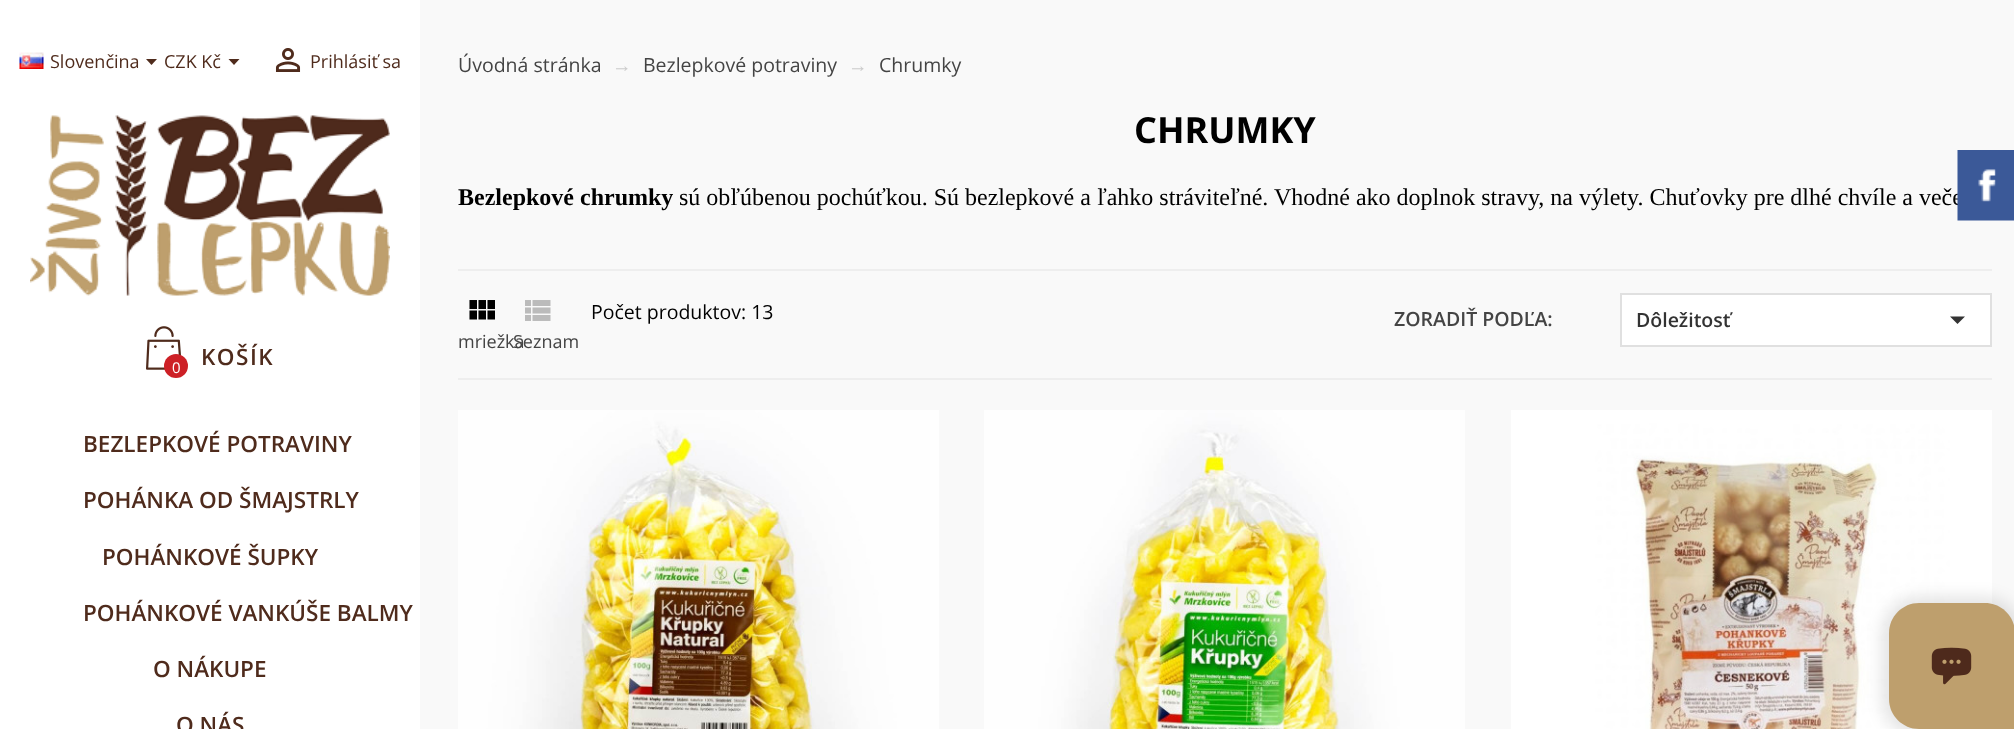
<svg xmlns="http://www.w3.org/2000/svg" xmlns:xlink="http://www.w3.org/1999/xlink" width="2014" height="729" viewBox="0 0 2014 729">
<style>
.cls-1{font:18px Open Sans;fill:#4f2b1c}
.cls-2{font:600 22.5px Open Sans;letter-spacing:1.5px;fill:#4f2b1c}
.cls-3{font:15px Open Sans;fill:#ffffff}
.cls-4{font:600 22.5px Open Sans;fill:#4f2b1c}
.cls-5{font:19.5px Open Sans;fill:#444444}
.cls-6{font:19.5px Liberation Sans;fill:#cccccc}
.cls-7{font:bold 36px Open Sans;fill:#000000}
.cls-8{font:bold 24px Liberation Serif;fill:#000000}
.cls-9{font:24px Liberation Serif;fill:#000000}
.cls-10{font:19.5px Open Sans;fill:#000000}
.cls-11{font:18px Open Sans;fill:#444444}
.cls-12{font:600 19.5px Open Sans;fill:#444444}
.cls-13{font:600 19.5px Open Sans;fill:#333333}
</style>
<rect width="100%" height="100%" fill="#ffffff"/>
<image xlink:href="image0.png" x="19" y="52" width="25" height="17"/>
<path fill="#4f2b1c" d="M146 59H157L151.5 65Z"/>
<path fill="#4f2b1c" d="M228.5 59H239.5L234 65Z"/>
<image xlink:href="image1.png" x="275" y="48" width="26" height="24"/>
<image xlink:href="image2.png" x="30" y="115" width="360" height="181"/>
<image xlink:href="image3.png" x="146" y="326" width="35" height="44"/>
<circle fill="#cd2026" cx="176" cy="366" r="12"/>
<rect fill="#f9f9f9" x="420" y="0" width="1594" height="729"/>
<rect fill="#eeeeee" x="458" y="269" width="1534" height="2"/>
<rect fill="#eeeeee" x="458" y="378" width="1534" height="2"/>
<image xlink:href="image4.png" x="469" y="300" width="26" height="20"/>
<image xlink:href="image5.png" x="525" y="300" width="26" height="21"/>
<rect fill="#ffffff" stroke="#e0e0e0" stroke-width="2" x="1621" y="294" width="370" height="52"/>
<path fill="#333333" d="M1950 316.5H1965L1957.5 324Z"/>
<image xlink:href="image6.png" x="458" y="410" width="481" height="319"/>
<image xlink:href="image7.png" x="984" y="410" width="481" height="319"/>
<image xlink:href="image8.png" x="1511" y="410" width="481" height="319"/>
<rect fill="#000000" fill-opacity="0.1" filter="blur(7.5px)" x="1881" y="596" width="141" height="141" rx="38"/>
<path fill="#be9f6d" d="M1919 603H1985C2001.5 603 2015 616.5 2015 633V729H1919C1902.5 729 1889 715.5 1889 699V633C1889 616.5 1902.5 603 1919 603Z"/>
<image xlink:href="image10.png" x="1931" y="647" width="41" height="38"/>
<text class="cls-1" x="50" y="68">Slovenčina</text>
<text class="cls-1" x="164" y="68">CZK Kč</text>
<text class="cls-1" x="310" y="68">Prihlásiť sa</text>
<text class="cls-2" x="201" y="365">KOŠÍK</text>
<text class="cls-3" x="172" y="373">0</text>
<text class="cls-4" x="83" y="452">BEZLEPKOVÉ POTRAVINY</text>
<text class="cls-4" x="83" y="508">POHÁNKA OD ŠMAJSTRLY</text>
<text class="cls-4" x="102" y="565">POHÁNKOVÉ ŠUPKY</text>
<text class="cls-4" x="83" y="621">POHÁNKOVÉ VANKÚŠE BALMY</text>
<text class="cls-4" x="153" y="677">O NÁKUPE</text>
<text class="cls-4" x="176" y="733">O NÁS</text>
<text class="cls-5" x="458" y="72">Úvodná stránka</text>
<text class="cls-6" x="612" y="72">→</text>
<text class="cls-5" x="643" y="72">Bezlepkové potraviny</text>
<text class="cls-6" x="848" y="72">→</text>
<text class="cls-5" x="879" y="72">Chrumky</text>
<text class="cls-7" x="1134" y="143">CHRUMKY</text>
<text class="cls-8" x="458" y="205">Bezlepkové chrumky</text>
<text class="cls-9" x="679" y="205">sú obľúbenou pochúťkou. Sú bezlepkové a ľahko stráviteľné. Vhodné ako doplnok stravy, na výlety. Chuťovky pre dlhé chvíle a veče</text>
<text class="cls-10" x="591" y="319">Počet produktov: 13</text>
<text class="cls-11" x="458" y="348">mriežka</text>
<text class="cls-11" x="513" y="348">Seznam</text>
<text class="cls-12" x="1394" y="326">ZORADIŤ PODĽA:</text>
<text class="cls-13" x="1636" y="327">Dôležitosť</text>
<image xlink:href="image9.png" x="1957" y="150" width="57" height="71"/>
</svg>
